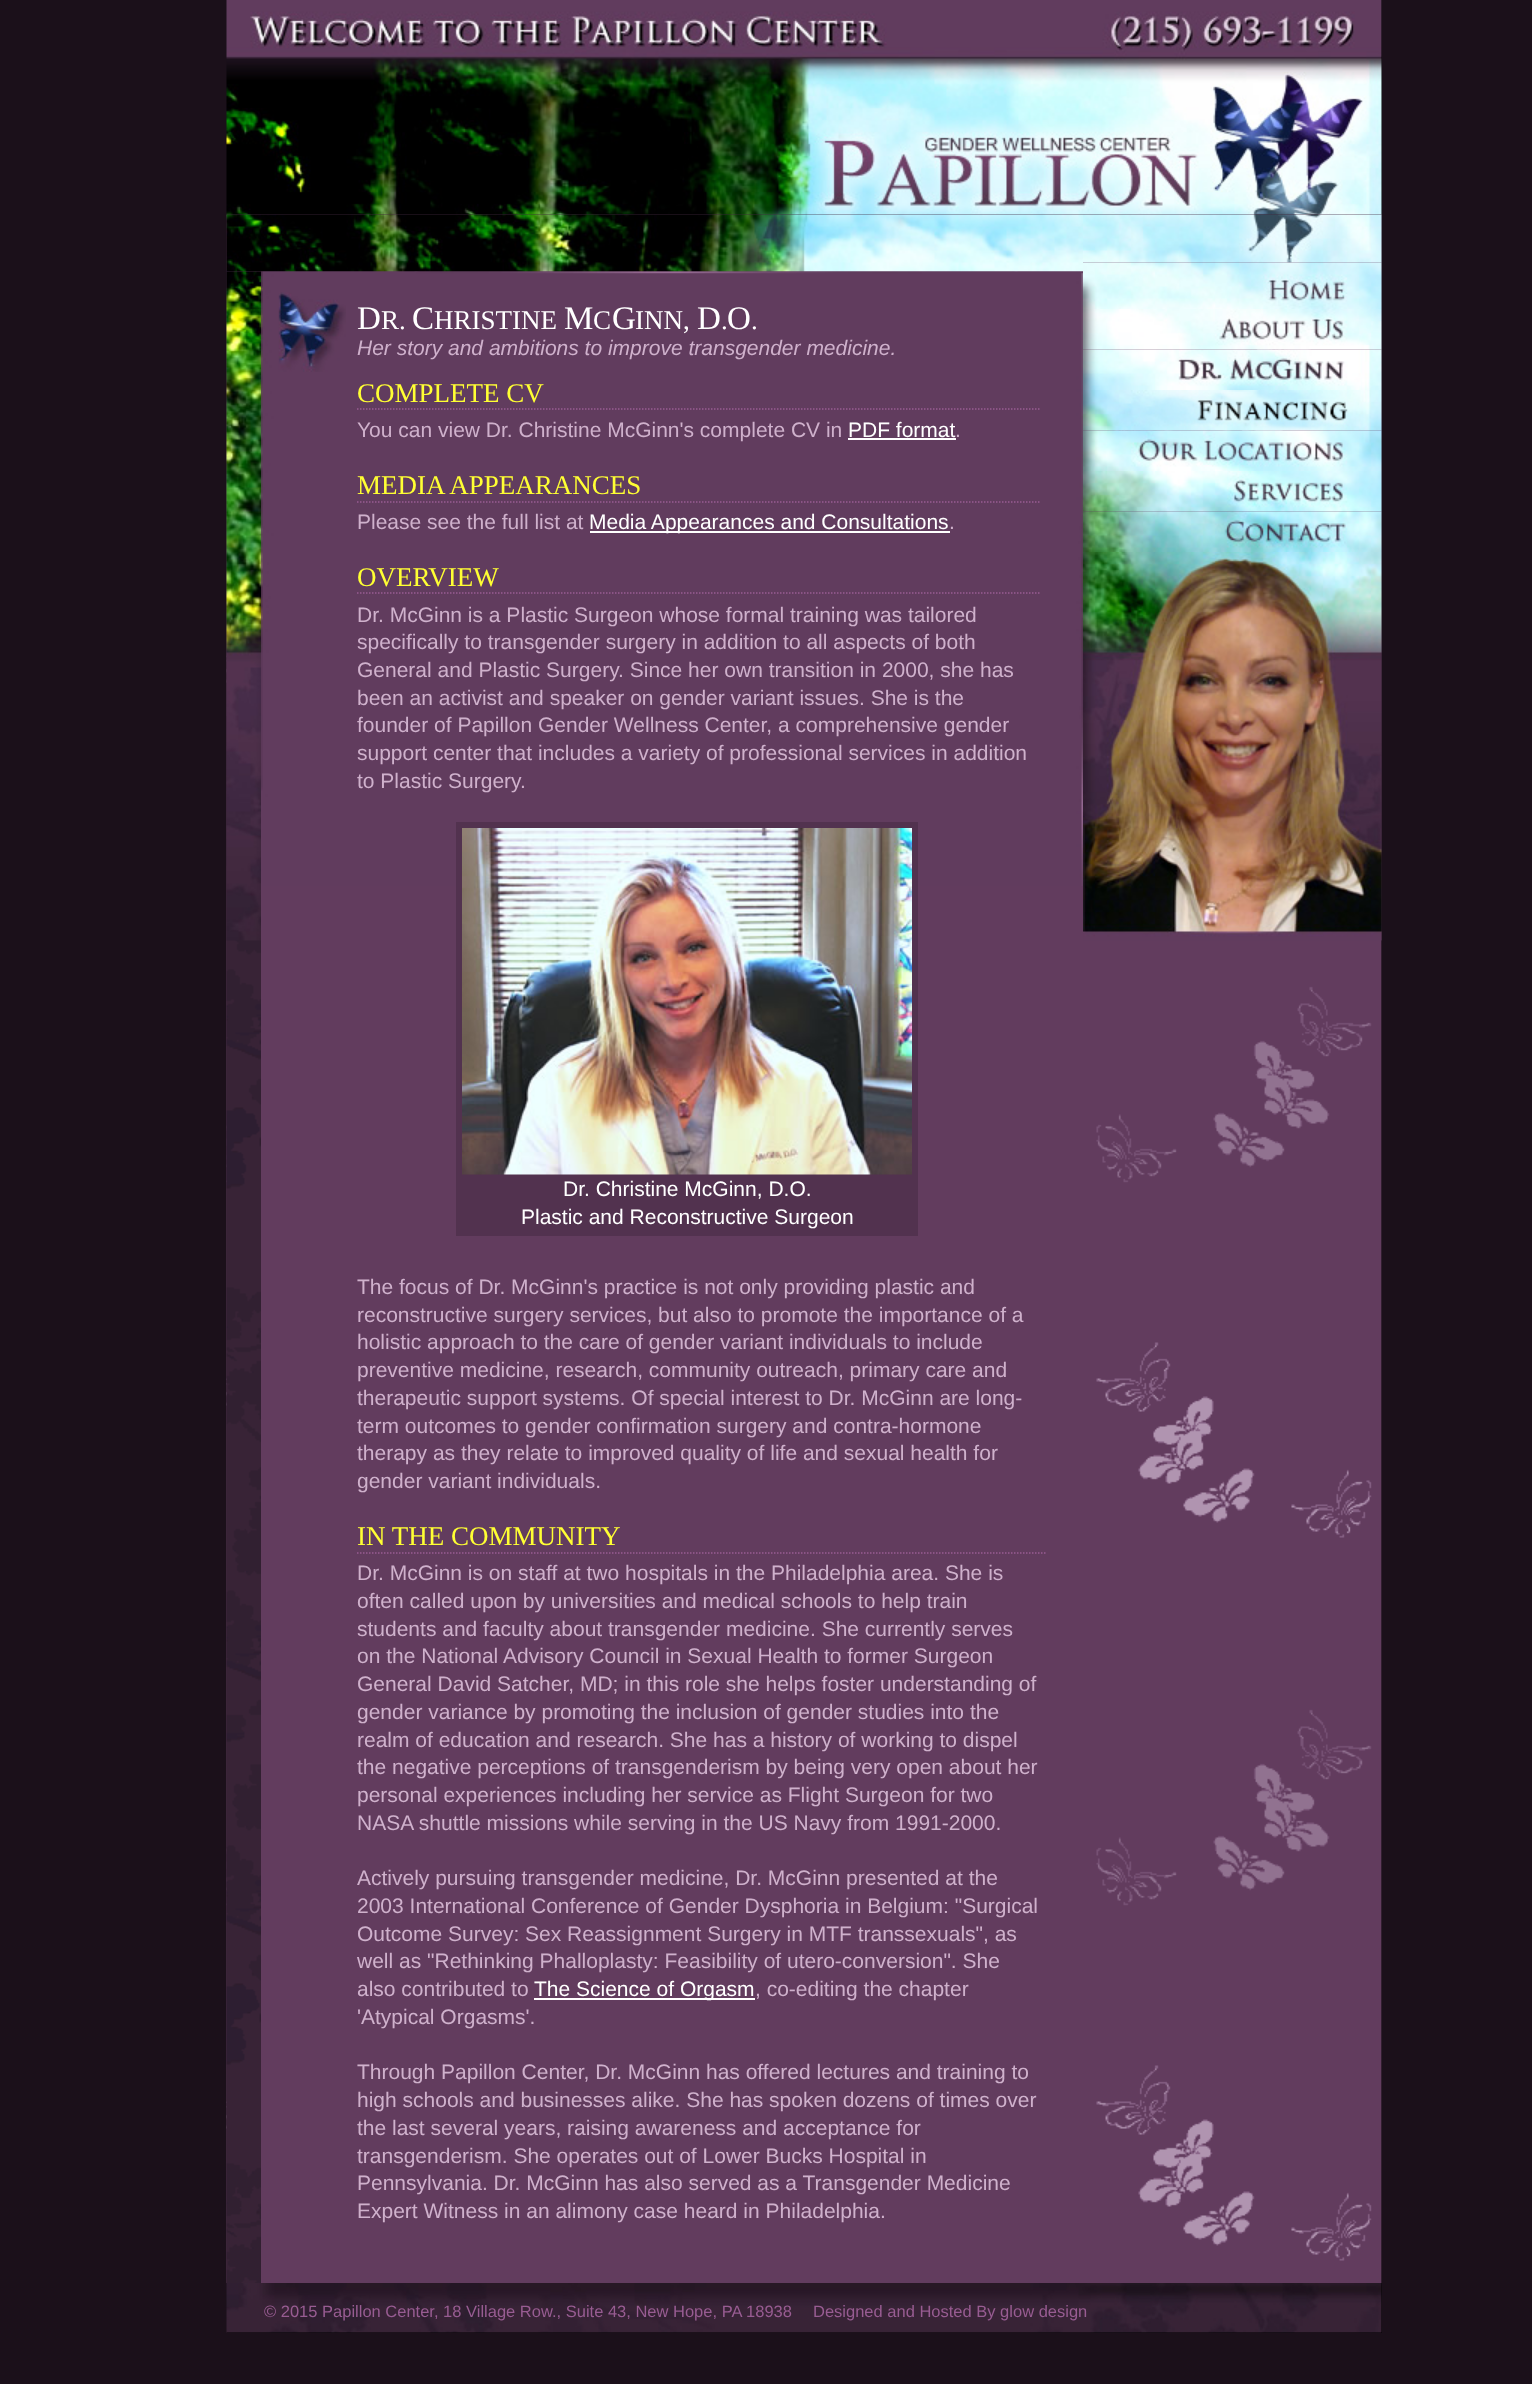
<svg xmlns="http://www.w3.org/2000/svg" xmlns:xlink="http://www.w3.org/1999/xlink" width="1532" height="2384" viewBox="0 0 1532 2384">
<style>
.cls-1{font:33px Liberation Serif;fill:#ffffff}
.cls-2{font:27px Liberation Serif;fill:#ffffff}
.cls-3{font:italic 21px Liberation Sans;fill:#cfb1cc}
.cls-4{font:27px Liberation Serif;fill:#ffff33}
.cls-5{font:21px Liberation Sans;fill:#cfb1cc}
.cls-6{font:21px Liberation Sans;fill:#ffffff}
.cls-7{font:16.5px Liberation Sans;fill:#985c92}
</style>
<rect width="100%" height="100%" fill="#1b101a"/>
<rect fill="#000000" x="227" y="0" width="1155" height="2333"/>
<image xlink:href="image0.png" x="226" y="0" width="1156" height="215"/>
<image xlink:href="image1.png" x="226" y="214" width="1156" height="2069"/>
<image xlink:href="image2.png" x="226" y="214" width="857" height="58"/>
<image xlink:href="image3.png" x="226" y="271" width="35" height="2012"/>
<image xlink:href="image4.png" x="226" y="271" width="35" height="670"/>
<rect fill="#623c5e" x="261" y="986" width="811" height="1275"/>
<image xlink:href="image5.png" x="261" y="271" width="822" height="615"/>
<image xlink:href="image6.png" x="278" y="292" width="68" height="80"/>
<path fill="none" stroke="#985c92" stroke-width="1.5" stroke-dasharray="1.5 1.5" d="M357 409H1041"/>
<rect fill="#ffffff" x="848" y="438" width="108" height="2"/>
<path fill="none" stroke="#985c92" stroke-width="1.5" stroke-dasharray="1.5 1.5" d="M357 502H1041"/>
<rect fill="#ffffff" x="590" y="531" width="360" height="2"/>
<path fill="none" stroke="#985c92" stroke-width="1.5" stroke-dasharray="1.5 1.5" d="M357 593H1041"/>
<rect fill="#52324f" x="456" y="822" width="462" height="414"/>
<image xlink:href="image7.png" x="462" y="828" width="450" height="347"/>
<path fill="none" stroke="#985c92" stroke-width="1.5" stroke-dasharray="1.5 1.5" d="M357 1553H1047"/>
<rect fill="#ffffff" x="534" y="1998" width="221" height="2"/>
<image xlink:href="image8.png" x="1083" y="552" width="299" height="389"/>
<image xlink:href="image9.png" x="1083" y="214" width="299" height="49"/>
<image xlink:href="image10.png" x="1083" y="262" width="299" height="47"/>
<image xlink:href="image11.png" x="1083" y="309" width="299" height="41"/>
<image xlink:href="image12.png" x="1083" y="349" width="299" height="41"/>
<image xlink:href="image13.png" x="1083" y="390" width="299" height="41"/>
<image xlink:href="image14.png" x="1083" y="430" width="299" height="41"/>
<image xlink:href="image15.png" x="1083" y="471" width="299" height="41"/>
<image xlink:href="image16.png" x="1083" y="511" width="299" height="41"/>
<image xlink:href="image17.png" x="226" y="2283" width="1156" height="50"/>
<text class="cls-1" x="357" y="329">D</text>
<text class="cls-2" x="381" y="329">R.</text>
<text class="cls-1" x="412" y="329">C</text>
<text class="cls-2" x="434" y="329">HRISTINE</text>
<text class="cls-1" x="564" y="329">M</text>
<text class="cls-2" x="593" y="329">C</text>
<text class="cls-1" x="612" y="329">G</text>
<text class="cls-2" x="635" y="329">INN,</text>
<text class="cls-1" x="697" y="329">D</text>
<text class="cls-2" x="721" y="329">.</text>
<text class="cls-1" x="727" y="329">O</text>
<text class="cls-2" x="751" y="329">.</text>
<text class="cls-3" x="357" y="355">Her story and ambitions to improve transgender medicine.</text>
<text class="cls-4" x="357" y="402">COMPLETE CV</text>
<text class="cls-5" x="357" y="437">You can view Dr. Christine McGinn's complete CV in</text>
<text class="cls-6" x="848" y="437">PDF format</text>
<text class="cls-5" x="955" y="437">.</text>
<text class="cls-4" x="357" y="494">MEDIA APPEARANCES</text>
<text class="cls-5" x="357" y="529">Please see the full list at</text>
<text class="cls-6" x="589" y="529">Media Appearances and Consultations</text>
<text class="cls-5" x="949" y="529">.</text>
<text class="cls-4" x="357" y="586">OVERVIEW</text>
<text class="cls-5"><tspan x="357" y="622">Dr. McGinn is a Plastic Surgeon whose formal training was tailored</tspan><tspan x="357" y="649">specifically to transgender surgery in addition to all aspects of both</tspan><tspan x="357" y="677">General and Plastic Surgery. Since her own transition in 2000, she has</tspan><tspan x="357" y="705">been an activist and speaker on gender variant issues. She is the</tspan><tspan x="357" y="732">founder of Papillon Gender Wellness Center, a comprehensive gender</tspan><tspan x="357" y="760">support center that includes a variety of professional services in addition</tspan><tspan x="357" y="788">to Plastic Surgery.</tspan></text>
<text class="cls-6" x="563" y="1196">Dr. Christine McGinn, D.O.</text>
<text class="cls-6" x="521" y="1224">Plastic and Reconstructive Surgeon</text>
<text class="cls-5"><tspan x="357" y="1294">The focus of Dr. McGinn's practice is not only providing plastic and</tspan><tspan x="357" y="1322">reconstructive surgery services, but also to promote the importance of a</tspan><tspan x="357" y="1349">holistic approach to the care of gender variant individuals to include</tspan><tspan x="357" y="1377">preventive medicine, research, community outreach, primary care and</tspan><tspan x="357" y="1405">therapeutic support systems. Of special interest to Dr. McGinn are long-</tspan><tspan x="357" y="1433">term outcomes to gender confirmation surgery and contra-hormone</tspan><tspan x="357" y="1460">therapy as they relate to improved quality of life and sexual health for</tspan><tspan x="357" y="1488">gender variant individuals.</tspan></text>
<text class="cls-4" x="357" y="1545">IN THE COMMUNITY</text>
<text class="cls-5"><tspan x="357" y="1580">Dr. McGinn is on staff at two hospitals in the Philadelphia area. She is</tspan><tspan x="357" y="1608">often called upon by universities and medical schools to help train</tspan><tspan x="357" y="1636">students and faculty about transgender medicine. She currently serves</tspan><tspan x="357" y="1663">on the National Advisory Council in Sexual Health to former Surgeon</tspan><tspan x="357" y="1691">General David Satcher, MD; in this role she helps foster understanding of</tspan><tspan x="357" y="1719">gender variance by promoting the inclusion of gender studies into the</tspan><tspan x="357" y="1747">realm of education and research. She has a history of working to dispel</tspan><tspan x="357" y="1774">the negative perceptions of transgenderism by being very open about her</tspan><tspan x="357" y="1802">personal experiences including her service as Flight Surgeon for two</tspan><tspan x="357" y="1830">NASA shuttle missions while serving in the US Navy from 1991-2000.</tspan></text>
<text class="cls-5"><tspan x="357" y="1885">Actively pursuing transgender medicine, Dr. McGinn presented at the</tspan><tspan x="357" y="1913">2003 International Conference of Gender Dysphoria in Belgium: "Surgical</tspan><tspan x="357" y="1941">Outcome Survey: Sex Reassignment Surgery in MTF transsexuals", as</tspan><tspan x="357" y="1968">well as "Rethinking Phalloplasty: Feasibility of utero-conversion". She</tspan><tspan x="357" y="1996">also contributed to</tspan></text>
<text class="cls-6" x="534" y="1996">The Science of Orgasm</text>
<text class="cls-5" x="755" y="1996">, co-editing the chapter</text>
<text class="cls-5" x="357" y="2024">'Atypical Orgasms'.</text>
<text class="cls-5"><tspan x="357" y="2079">Through Papillon Center, Dr. McGinn has offered lectures and training to</tspan><tspan x="357" y="2107">high schools and businesses alike. She has spoken dozens of times over</tspan><tspan x="357" y="2135">the last several years, raising awareness and acceptance for</tspan><tspan x="357" y="2163">transgenderism. She operates out of Lower Bucks Hospital in</tspan><tspan x="357" y="2190">Pennsylvania. Dr. McGinn has also served as a Transgender Medicine</tspan><tspan x="357" y="2218">Expert Witness in an alimony case heard in Philadelphia.</tspan></text>
<text class="cls-7" x="264" y="2317">© 2015 Papillon Center, 18 Village Row., Suite 43, New Hope, PA 18938</text>
<text class="cls-7" x="813" y="2317">Designed and Hosted By glow design</text>
</svg>
